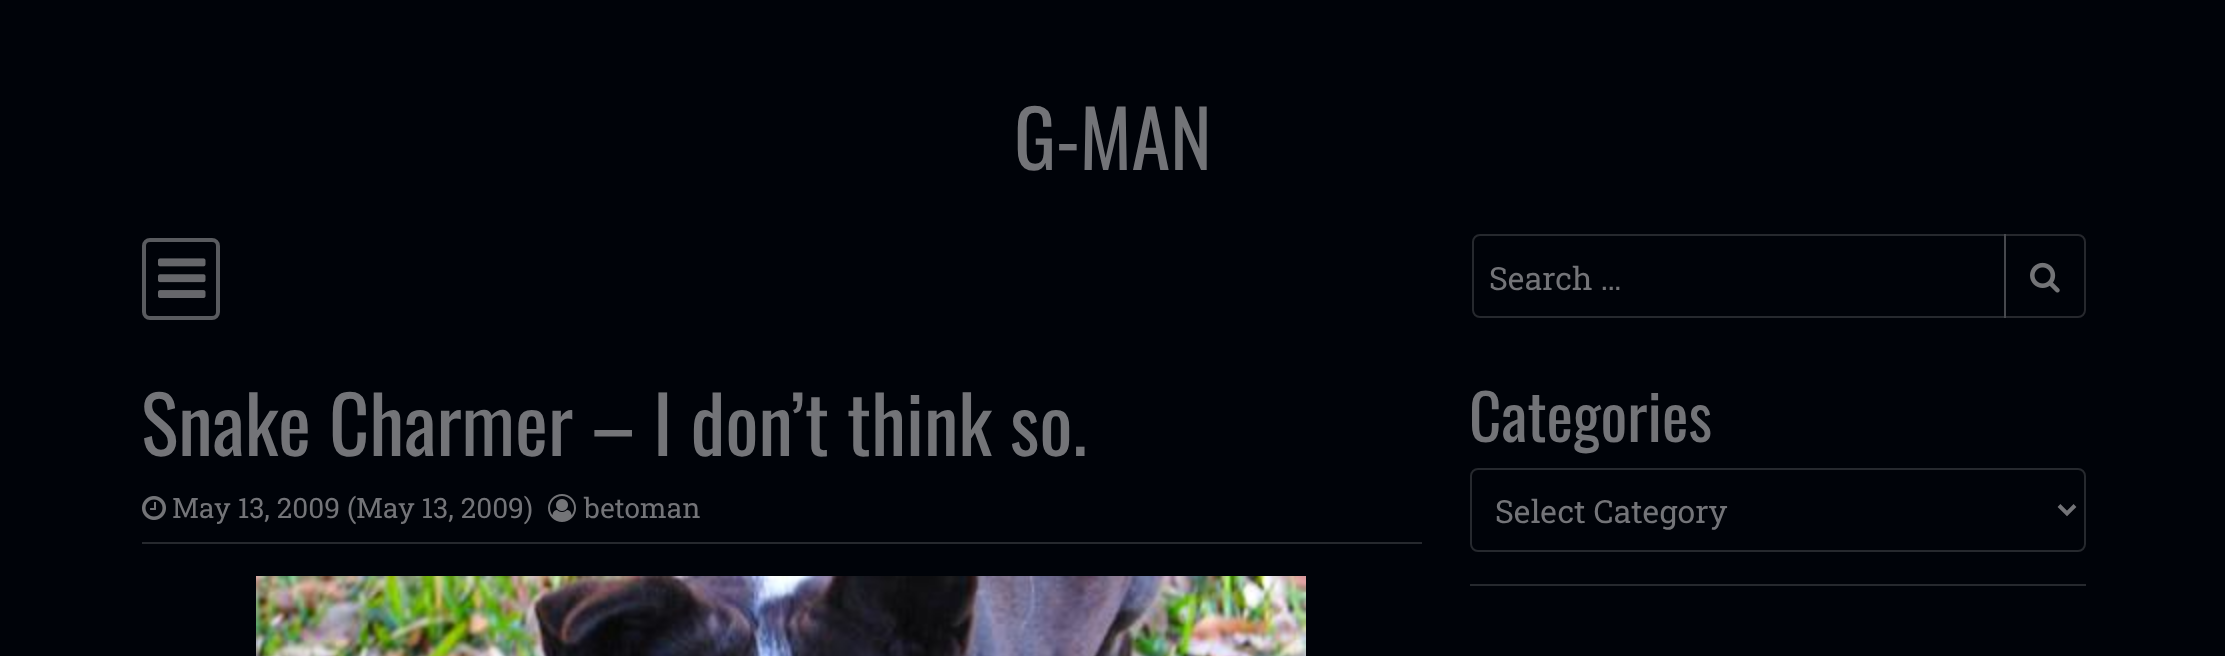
<svg xmlns="http://www.w3.org/2000/svg" xmlns:xlink="http://www.w3.org/1999/xlink" width="2225" height="656" viewBox="0 0 2225 656">
<style>
.cls-1{font:78.5px Oswald;fill:#737478}
.cls-2{font:32px Roboto Slab;fill:#737478}
.cls-3{font:28px Roboto Slab;fill:#737478}
.cls-4{font:63px Oswald;fill:#737478}
</style>
<rect width="100%" height="100%" fill="#000309"/>
<rect fill="none" stroke="#595b5f" stroke-width="4" x="144" y="240" width="74" height="78" rx="6"/>
<image xlink:href="image0.png" x="158" y="258" width="48" height="40"/>
<path fill="none" stroke="#26292e" stroke-width="2" d="M1480 235H2005V317H1480C1476 317 1473 314 1473 310V242C1473 238 1476 235 1480 235Z"/>
<path fill="none" stroke="#ffffff" stroke-opacity="0.15" stroke-width="2" d="M2005 235H2078C2082 235 2085 238 2085 242V310C2085 314 2082 317 2078 317H2005Z"/>
<image xlink:href="image1.png" x="2030" y="262" width="30" height="31"/>
<rect fill="#26292e" x="142" y="542" width="1280" height="2"/>
<image xlink:href="image2.png" x="142" y="496" width="24" height="24"/>
<image xlink:href="image3.png" x="548" y="494" width="28" height="28"/>
<image xlink:href="image4.png" x="256" y="576" width="1050" height="80"/>
<rect fill="#26292e" x="1470" y="584" width="616" height="2"/>
<rect fill="none" stroke="#26292e" stroke-width="2" x="1471" y="469" width="614" height="82" rx="7"/>
<path fill="none" stroke="#737478" stroke-width="4" d="M2059 505.5L2067 513.5L2075 505.5"/>
<text class="cls-1" x="1014" y="170">G-MAN</text>
<text class="cls-2" x="1489" y="290">Search …</text>
<text class="cls-1" x="141" y="456">Snake Charmer – I don’t think so.</text>
<text class="cls-3" x="172" y="518">May 13, 2009 (May 13, 2009)</text>
<text class="cls-3" x="584" y="518">betoman</text>
<text class="cls-4" x="1469" y="442">Categories</text>
<text class="cls-2" x="1495" y="523">Select Category</text>
</svg>
